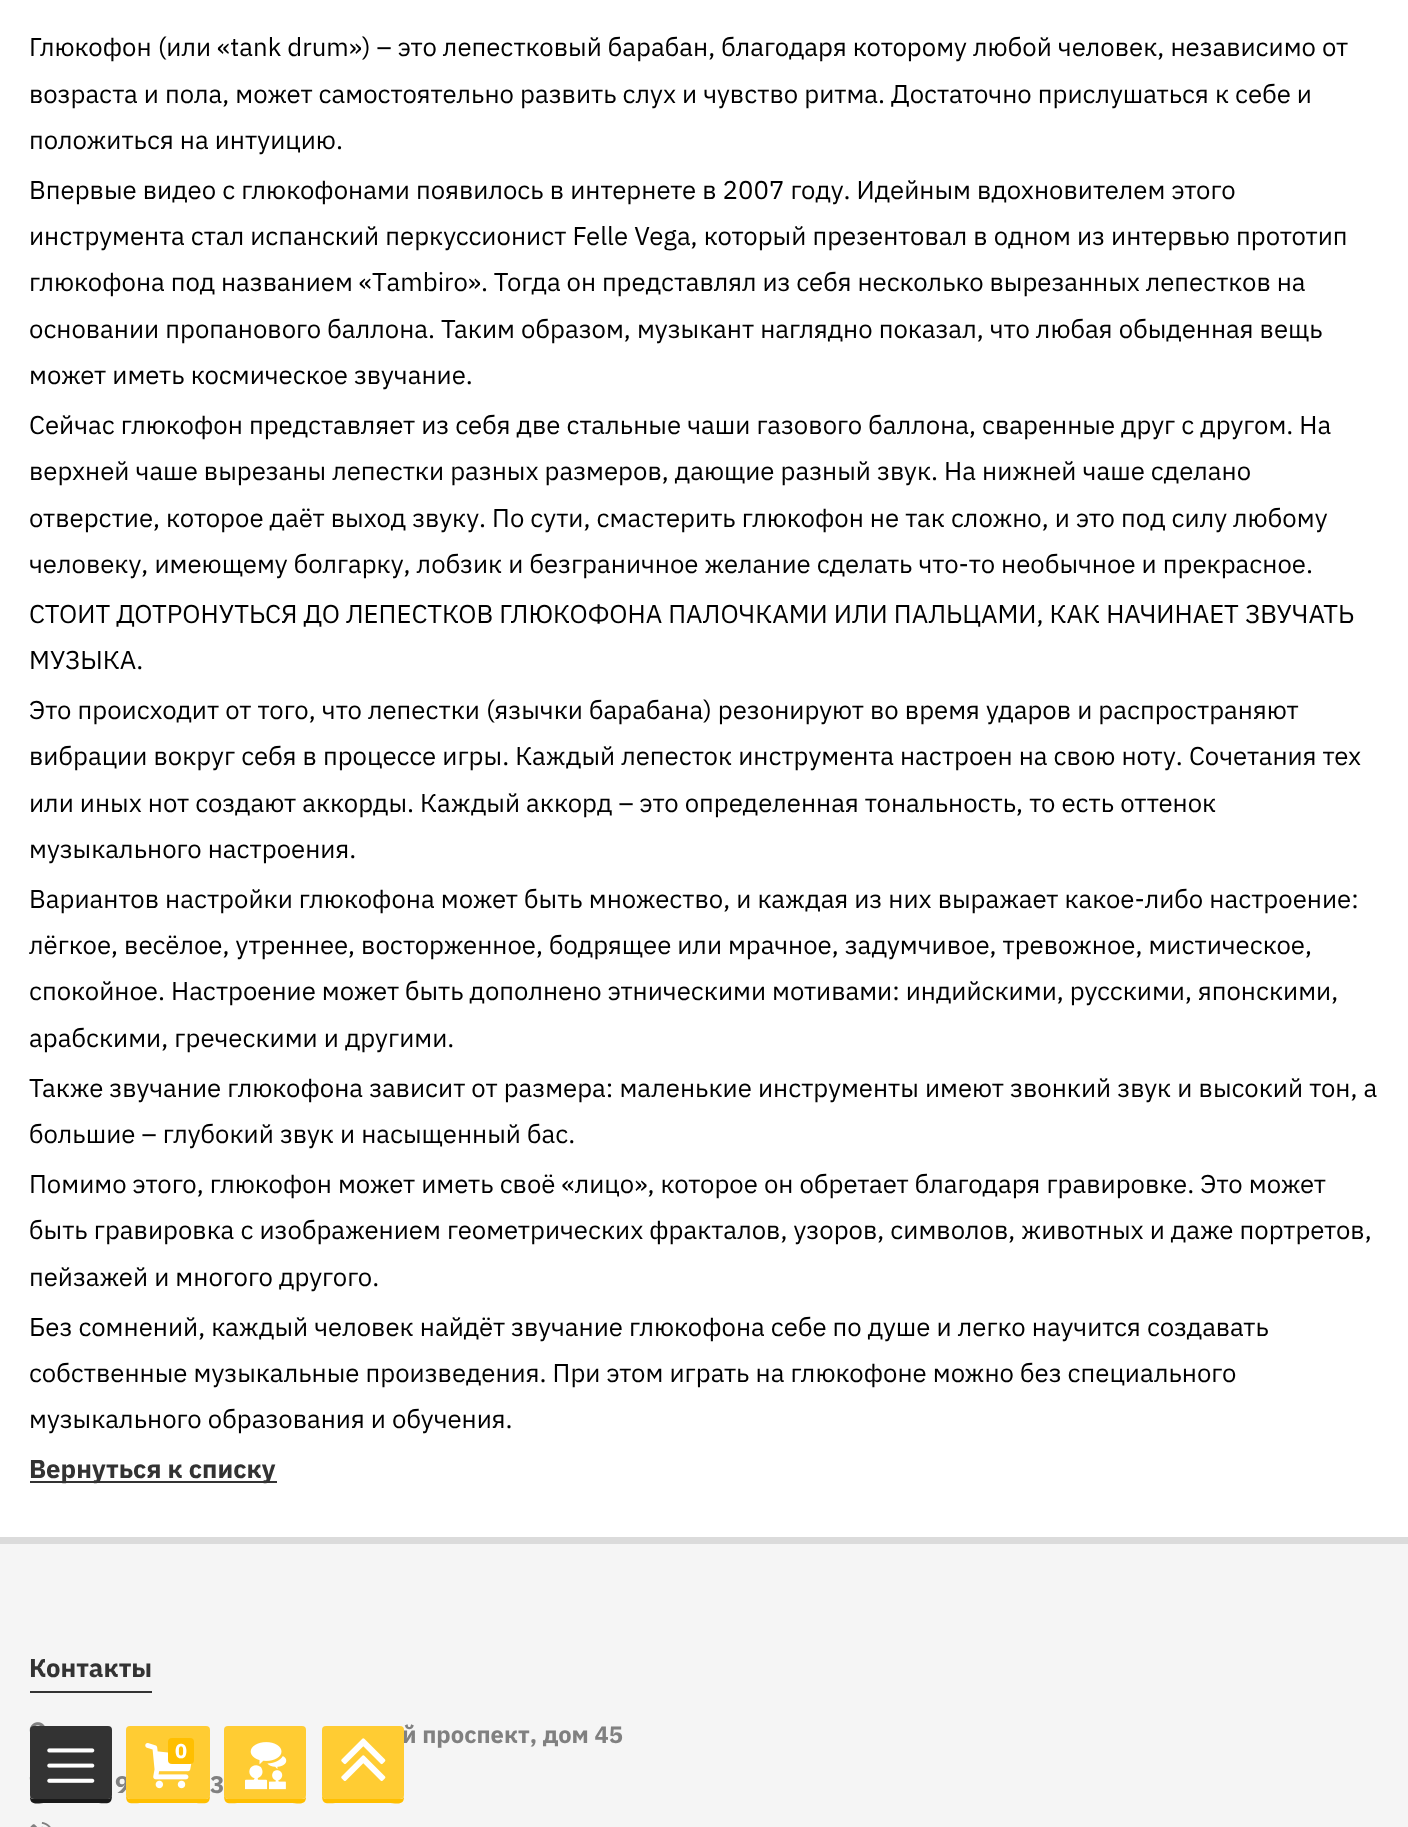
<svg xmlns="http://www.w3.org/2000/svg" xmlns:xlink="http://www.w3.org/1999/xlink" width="1408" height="1827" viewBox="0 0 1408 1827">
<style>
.cls-1{font:25.72px IBM Plex Sans;fill:#000000}
.cls-2{font:bold 25.72px IBM Plex Sans;fill:#333333}
.cls-3{font:bold 23.75px IBM Plex Sans;fill:#808080}
.cls-4{font:bold 24px IBM Plex Sans;fill:#808080}
.cls-5{font:bold 20px IBM Plex Sans;fill:#ffffff}
</style>
<rect width="100%" height="100%" fill="#ffffff"/>
<rect fill="#333333" x="30" y="1481" width="247" height="2"/>
<rect fill="#f5f5f5" x="0" y="1544" width="1408" height="283"/>
<rect fill="#dbdbdb" x="0" y="1537" width="1408" height="7"/>
<rect fill="#333333" x="30" y="1691" width="122" height="2"/>
<image xlink:href="image0.png" x="29" y="1722" width="16" height="10"/>
<image xlink:href="image1.png" x="29" y="1777" width="1" height="3"/>
<image xlink:href="image2.png" x="30" y="1822" width="21" height="5"/>
<path fill="#1a1a1a" d="M30 1797C30 1806 38 1803 46 1803H96C107 1803 112 1806 112 1795C112 1797 110 1799 108 1799H33C32 1799 31 1798 30 1797Z"/>
<rect fill="#333333" x="30" y="1726" width="82" height="73" rx="4"/>
<image xlink:href="image3.png" x="47" y="1748" width="48" height="35"/>
<path fill="#ffbf00" d="M126 1795C126 1806 131 1803 143 1803H193C205 1803 210 1806 210 1795C210 1797 208 1799 206 1799H130C128 1799 126 1797 126 1795Z"/>
<path fill="#ffbf00" d="M224 1795C224 1806 229 1803 240 1803H290C298 1803 306 1806 306 1797C305 1798 304 1799 303 1799H228C226 1799 224 1797 224 1795Z"/>
<rect fill="#ffcc33" x="224" y="1726" width="82" height="73" rx="4"/>
<image xlink:href="image5.png" x="245" y="1742" width="42" height="48"/>
<path fill="#ffbf00" d="M322 1795C322 1806 327 1803 338 1803H388C396 1803 404 1806 404 1797C403 1798 402 1799 401 1799H326C324 1799 322 1797 322 1795Z"/>
<text class="cls-1"><tspan x="29" y="56">Глюкофон (или «tank drum») – это лепестковый барабан, благодаря которому любой человек, независимо от</tspan><tspan x="29" y="103">возраста и пола, может самостоятельно развить слух и чувство ритма. Достаточно прислушаться к себе и</tspan><tspan x="29" y="149">положиться на интуицию.</tspan><tspan x="29" y="199">Впервые видео с глюкофонами появилось в интернете в 2007 году. Идейным вдохновителем этого</tspan><tspan x="29" y="245">инструмента стал испанский перкуссионист Felle Vega, который презентовал в одном из интервью прототип</tspan><tspan x="29" y="291" word-spacing="-0.25">глюкофона под названием «Tambiro». Тогда он представлял из себя несколько вырезанных лепестков на</tspan><tspan x="29" y="338">основании пропанового баллона. Таким образом, музыкант наглядно показал, что любая обыденная вещь</tspan><tspan x="29" y="384">может иметь космическое звучание.</tspan><tspan x="29" y="434">Сейчас глюкофон представляет из себя две стальные чаши газового баллона, сваренные друг с другом. На</tspan><tspan x="29" y="480">верхней чаше вырезаны лепестки разных размеров, дающие разный звук. На нижней чаше сделано</tspan><tspan x="29" y="527">отверстие, которое даёт выход звуку. По сути, смастерить глюкофон не так сложно, и это под силу любому</tspan><tspan x="29" y="573">человеку, имеющему болгарку, лобзик и безграничное желание сделать что-то необычное и прекрасное.</tspan><tspan x="29" y="623">СТОИТ ДОТРОНУТЬСЯ ДО ЛЕПЕСТКОВ ГЛЮКОФОНА ПАЛОЧКАМИ ИЛИ ПАЛЬЦАМИ, КАК НАЧИНАЕТ ЗВУЧАТЬ</tspan><tspan x="29" y="669">МУЗЫКА.</tspan><tspan x="29" y="719">Это происходит от того, что лепестки (язычки барабана) резонируют во время ударов и распространяют</tspan><tspan x="29" y="765">вибрации вокруг себя в процессе игры. Каждый лепесток инструмента настроен на свою ноту. Сочетания тех</tspan><tspan x="29" y="812">или иных нот создают аккорды. Каждый аккорд – это определенная тональность, то есть оттенок</tspan><tspan x="29" y="858">музыкального настроения.</tspan><tspan x="29" y="908">Вариантов настройки глюкофона может быть множество, и каждая из них выражает какое-либо настроение:</tspan><tspan x="29" y="954" word-spacing="-0.1">лёгкое, весёлое, утреннее, восторженное, бодрящее или мрачное, задумчивое, тревожное, мистическое,</tspan><tspan x="29" y="1000" word-spacing="-0.1">спокойное. Настроение может быть дополнено этническими мотивами: индийскими, русскими, японскими,</tspan><tspan x="29" y="1047">арабскими, греческими и другими.</tspan><tspan x="29" y="1097">Также звучание глюкофона зависит от размера: маленькие инструменты имеют звонкий звук и высокий тон, а</tspan><tspan x="29" y="1143">большие – глубокий звук и насыщенный бас.</tspan><tspan x="29" y="1193">Помимо этого, глюкофон может иметь своё «лицо», которое он обретает благодаря гравировке. Это может</tspan><tspan x="29" y="1239">быть гравировка с изображением геометрических фракталов, узоров, символов, животных и даже портретов,</tspan><tspan x="29" y="1286">пейзажей и многого другого.</tspan><tspan x="29" y="1336">Без сомнений, каждый человек найдёт звучание глюкофона себе по душе и легко научится создавать</tspan><tspan x="29" y="1382">собственные музыкальные произведения. При этом играть на глюкофоне можно без специального</tspan><tspan x="29" y="1428">музыкального образования и обучения.</tspan></text>
<text class="cls-2" x="29" y="1478">Вернуться к списку</text>
<text class="cls-2" x="29" y="1677">Контакты</text>
<text class="cls-3" x="402" y="1743">й проспект, дом 45</text>
<text class="cls-4" x="115" y="1793">9</text>
<text class="cls-4" x="210" y="1793">3</text>
<rect fill="#ffcc33" x="126" y="1726" width="84" height="73" rx="4"/>
<image xlink:href="image4.png" x="145" y="1743" width="47" height="46"/>
<rect fill="#ffbf00" x="168" y="1738" width="26" height="26" rx="4"/>
<text class="cls-5" x="175" y="1758">0</text>
<rect fill="#ffcc33" x="322" y="1726" width="82" height="73" rx="4"/>
<image xlink:href="image6.png" x="341" y="1738" width="45" height="44"/>
</svg>
